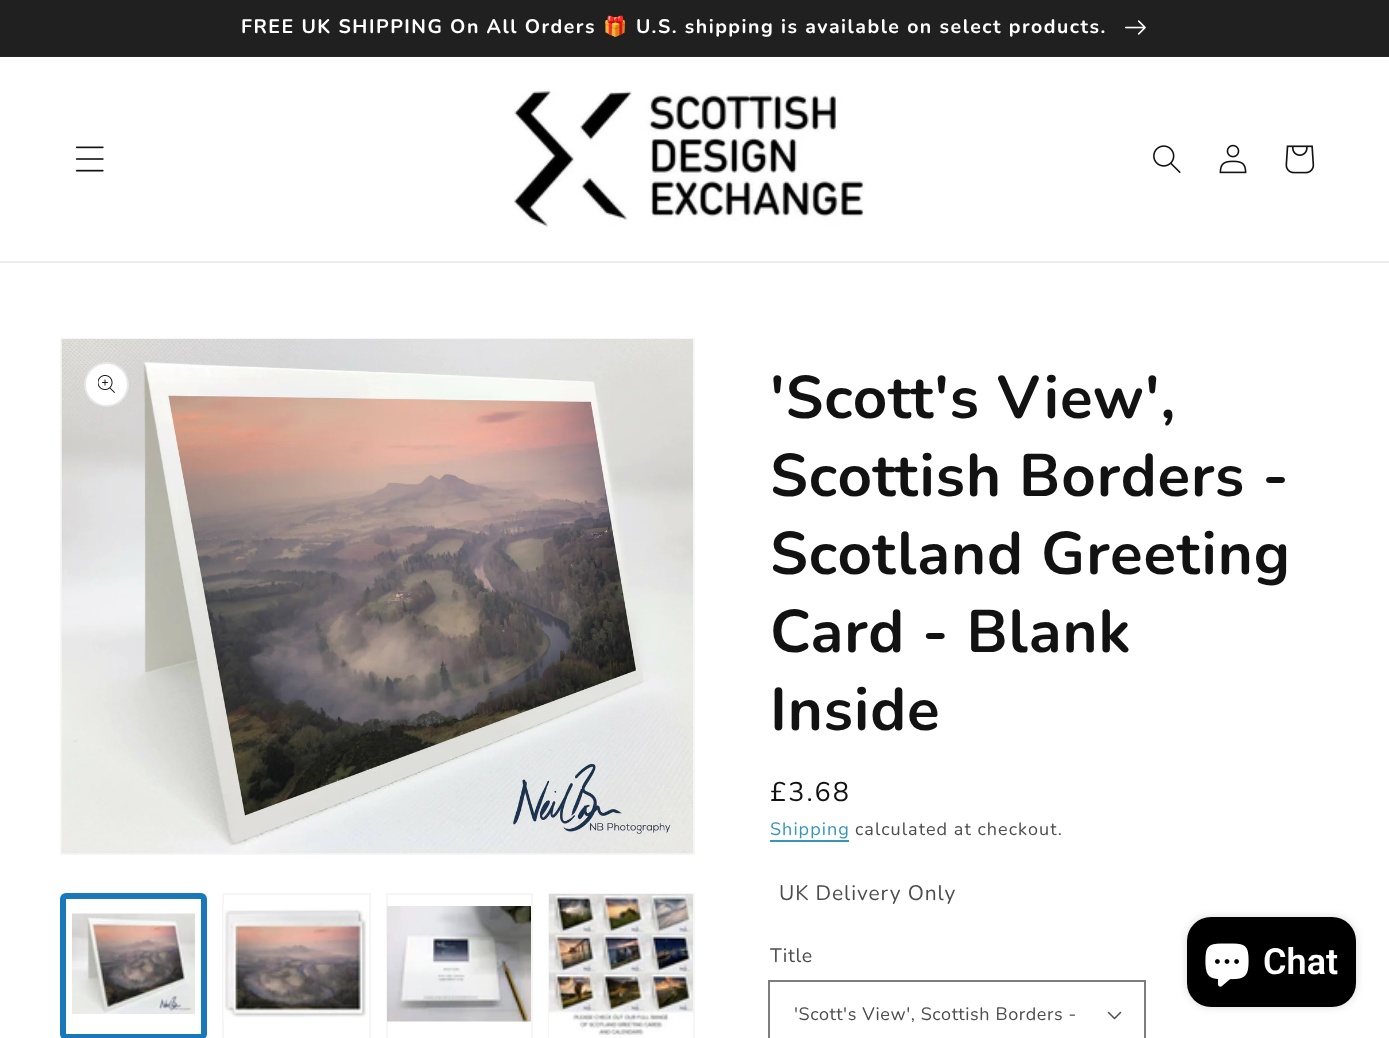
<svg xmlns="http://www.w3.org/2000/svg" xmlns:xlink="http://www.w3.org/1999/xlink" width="1389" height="1038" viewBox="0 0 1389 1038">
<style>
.cls-1{font:bold 19.5px Nunito;letter-spacing:1.5px;fill:#ffffff}
.cls-2{font:bold 19.5px Noto Color Emoji;letter-spacing:1.5px;fill:#ffffff}
.cls-3{font:bold 60px Nunito;letter-spacing:0.9px;fill:#121212}
.cls-4{font:27px Nunito;letter-spacing:2px;fill:#121212}
.cls-5{font:18px Nunito;letter-spacing:1.05px;fill:#3596b8}
.cls-6{font:18px Nunito;letter-spacing:1.05px;fill:#4d4d4d}
.cls-7{font:21px Nunito;letter-spacing:0.9px;fill:#4d4d4d}
.cls-8{font:19.5px Nunito;letter-spacing:0.6px;fill:#4d4d4d}
.cls-9{font:18px Nunito;letter-spacing:0.6px;fill:#4d4d4d}
.cls-10{font:600 36px Roboto;fill:#ffffff}
</style>
<rect width="100%" height="100%" fill="#ffffff"/>
<rect fill="#252525" x="0" y="56" width="1389" height="1"/>
<rect fill="#202020" x="0" y="0" width="1389" height="56"/>
<image xlink:href="image0.png" x="1125" y="20" width="21" height="15"/>
<rect fill="#ececec" x="0" y="261" width="1389" height="2"/>
<image xlink:href="image1.png" x="75" y="146" width="29" height="26"/>
<image xlink:href="image2.png" x="513" y="89" width="352" height="138"/>
<image xlink:href="image3.png" x="1153" y="145" width="28" height="28"/>
<image xlink:href="image4.png" x="1219" y="144" width="28" height="30"/>
<image xlink:href="image5.png" x="1285" y="145" width="30" height="29"/>
<rect fill="none" stroke="#f6f6f6" stroke-width="2" x="61" y="339" width="633" height="515"/>
<image xlink:href="image6.png" x="61" y="339" width="632" height="515"/>
<circle fill="#ffffff" cx="106.5" cy="384.5" r="22.5"/>
<circle fill="none" stroke="#121212" stroke-opacity="0.1" stroke-width="2" cx="106.5" cy="384.5" r="21.5"/>
<image xlink:href="image7.png" x="98" y="375" width="17" height="18"/>
<rect fill="none" stroke="#1878b9" stroke-width="6" x="63" y="896" width="141" height="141" rx="3"/>
<image xlink:href="image8.png" x="72" y="913" width="123" height="101"/>
<rect fill="none" stroke="#f6f6f6" stroke-width="2" x="223" y="894" width="147" height="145"/>
<image xlink:href="image9.png" x="223" y="909" width="144" height="109"/>
<rect fill="none" stroke="#f6f6f6" stroke-width="2" x="387" y="894" width="145" height="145"/>
<image xlink:href="image10.png" x="387" y="906" width="144" height="116"/>
<rect fill="none" stroke="#f6f6f6" stroke-width="2" x="549" y="894" width="145" height="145"/>
<image xlink:href="image11.png" x="549" y="894" width="144" height="144"/>
<rect fill="#3596b8" x="770" y="840" width="79" height="2"/>
<rect fill="none" stroke="#7d7d7d" stroke-width="2" x="769" y="981" width="376" height="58"/>
<image xlink:href="image12.png" x="1107" y="1011" width="15" height="9"/>
<rect fill="#000000" fill-opacity="0.15" filter="blur(4px)" x="1187" y="917" width="169" height="90" rx="24"/>
<rect fill="#000000" x="1187" y="917" width="169" height="90" rx="24"/>
<image xlink:href="image13.png" x="1205" y="943" width="44" height="44"/>
<text class="cls-1" x="241" y="33">FREE UK SHIPPING On All Orders</text>
<text class="cls-2" x="603" y="33">🎁</text>
<text class="cls-1" x="636" y="33">U.S. shipping is available on select products.</text>
<text class="cls-3"><tspan x="770" y="418">'Scott's View',</tspan><tspan x="770" y="496">Scottish Borders -</tspan><tspan x="770" y="574">Scotland Greeting</tspan><tspan x="770" y="652">Card - Blank</tspan><tspan x="770" y="730">Inside</tspan></text>
<text class="cls-4" x="770" y="801">£3.68</text>
<text class="cls-5" x="770" y="835">Shipping</text>
<text class="cls-6" x="855" y="835">calculated at checkout.</text>
<text class="cls-7" x="779" y="900">UK Delivery Only</text>
<text class="cls-8" x="770" y="962">Title</text>
<text class="cls-9" x="794" y="1020">'Scott's View', Scottish Borders -</text>
<text class="cls-10" x="1263" y="974">Chat</text>
</svg>
